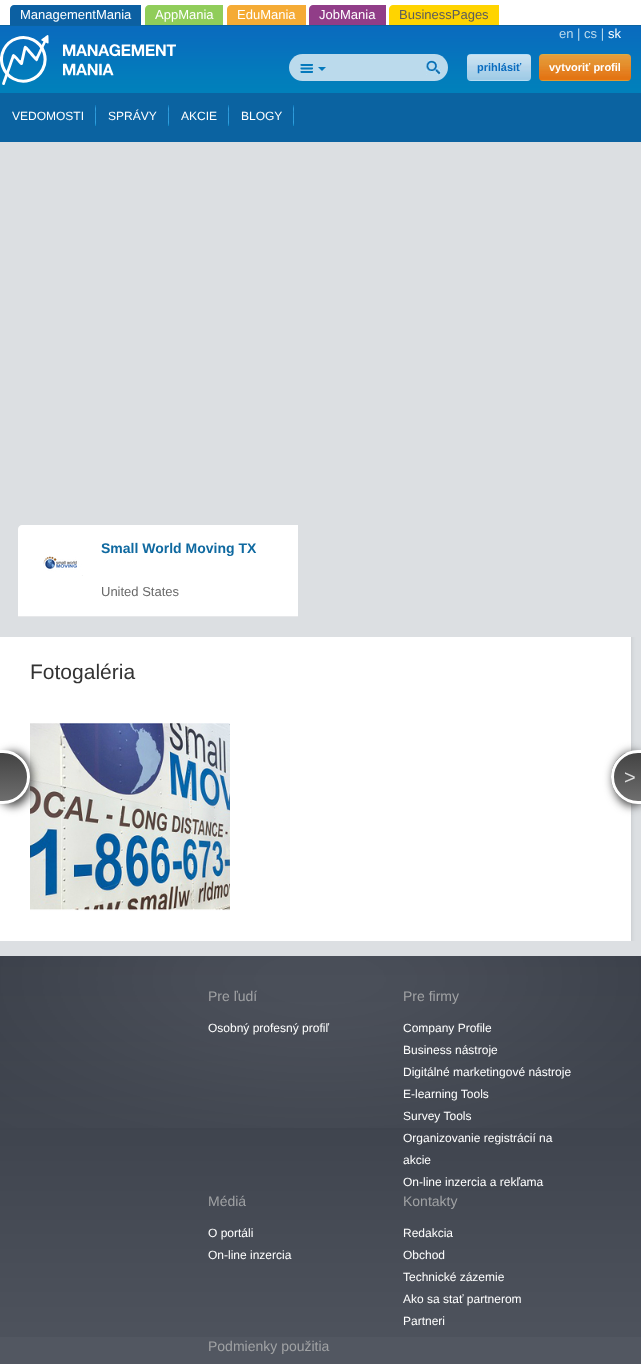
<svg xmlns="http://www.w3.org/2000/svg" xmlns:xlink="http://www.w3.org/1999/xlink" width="641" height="1364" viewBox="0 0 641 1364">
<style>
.cls-1{font:13px Liberation Sans;fill:#ffffff}
.cls-2{font:13px Liberation Sans;fill:#5c5c5c}
.cls-3{font:13px Liberation Sans;fill:#bbdaec}
.cls-4{font:bold 11px Liberation Sans;fill:#096cbf}
.cls-5{font:bold 11px Liberation Sans;fill:#ffffff}
.cls-6{font:12px Liberation Sans;fill:#ffffff}
.cls-7{font:bold 14px Liberation Sans;fill:#0f69a0}
.cls-8{font:13px Liberation Sans;fill:#696969}
.cls-9{font:21px Liberation Sans;fill:#333333}
.cls-10{font:20px Liberation Sans;fill:#dddddd}
.cls-11{font:14px Liberation Sans;fill:#a0a2a4}
</style>
<defs>
<clipPath id="clip1"><path d="M-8 750H3C18 750 30 762 30 777C30 792 18 804 3 804H-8Z"/></clipPath>
<linearGradient id="g1" gradientUnits="userSpaceOnUse" x1="11" y1="753" x2="11" y2="801"><stop offset="0" stop-color="#434343"/><stop offset="1" stop-color="#6e6e6e"/></linearGradient>
<clipPath id="clip2"><path d="M638 750H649V804H638C623 804 611 792 611 777C611 762 623 750 638 750Z"/></clipPath>
<linearGradient id="g2" gradientUnits="userSpaceOnUse" x1="630" y1="753" x2="630" y2="801"><stop offset="0" stop-color="#434343"/><stop offset="1" stop-color="#6e6e6e"/></linearGradient>
</defs>
<rect width="100%" height="100%" fill="#525761"/>
<rect fill="#ffffff" x="0" y="0" width="641" height="25"/>
<path fill="#0c60a2" d="M14 5H141V25H10V9C10 7 12 5 14 5Z"/>
<path fill="#90cd5a" d="M149 5H223V25H145V9C145 7 147 5 149 5Z"/>
<path fill="#f5ab35" d="M231 5H306V25H227V9C227 7 229 5 231 5Z"/>
<path fill="#913d88" d="M313 5H386V25H309V9C309 7 311 5 313 5Z"/>
<path fill="#ffd400" d="M393 5H499V25H389V9C389 7 391 5 393 5Z"/>
<rect fill="#0b63a1" x="0" y="25" width="641" height="117"/>
<image xlink:href="image0.png" x="0" y="26" width="641" height="67"/>
<image xlink:href="image1.png" x="0" y="35" width="176" height="50"/>
<path fill="#bbdaec" d="M302.5 54H321V81H302.5C295 81 289 75 289 67.5C289 60 295 54 302.5 54Z"/>
<image xlink:href="image2.png" x="300" y="64" width="13" height="9"/>
<rect fill="#bbdaec" x="321" y="54" width="95" height="27"/>
<path fill="#0479bc" d="M318 67H326L322 71Z"/>
<path fill="#bbdaec" d="M416 54H434.5C442 54 448 60 448 67.5C448 75 442 81 434.5 81H416Z"/>
<image xlink:href="image3.png" x="426" y="60" width="15" height="15"/>
<image xlink:href="image4.png" x="467" y="54" width="64" height="27"/>
<image xlink:href="image5.png" x="539" y="54" width="92" height="27"/>
<image xlink:href="image6.png" x="95" y="105" width="1" height="21"/>
<image xlink:href="image6.png" x="168" y="105" width="1" height="21"/>
<image xlink:href="image6.png" x="228" y="105" width="1" height="21"/>
<image xlink:href="image6.png" x="293" y="105" width="1" height="21"/>
<rect fill="#dcdfe2" x="0" y="142" width="641" height="495"/>
<path fill="#ffffff" d="M22 525H298V617H18V529C18 527 20 525 22 525Z"/>
<rect fill="#e7e8ea" x="18" y="616" width="280" height="1"/>
<image xlink:href="image7.png" x="43" y="556" width="40" height="20"/>
<rect fill="#ffffff" x="0" y="637" width="631" height="304"/>
<image xlink:href="image8.png" x="631" y="637" width="10" height="304"/>
<image xlink:href="image9.png" x="30" y="723" width="200" height="188"/>
<rect fill="#444444" filter="blur(5px)" x="-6" y="752" width="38" height="54" rx="27"/>
<g clip-path="url(#clip1)">
<rect fill="url(#g1)" x="0" y="753" width="30" height="48"/>
</g>
<path fill="none" stroke="#ffffff" stroke-width="3" d="M-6.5 751.5H3C17 751.5 28.5 763 28.5 777C28.5 791 17 802.5 3 802.5H-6.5Z"/>
<rect fill="#444444" filter="blur(5px)" x="613" y="752" width="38" height="54" rx="27"/>
<g clip-path="url(#clip2)">
<rect fill="url(#g2)" x="611" y="753" width="30" height="48"/>
</g>
<path fill="none" stroke="#ffffff" stroke-width="3" d="M638 751.5H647.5V802.5H638C624 802.5 612.5 791 612.5 777C612.5 763 624 751.5 638 751.5Z"/>
<rect fill="#dcdfe2" x="0" y="941" width="641" height="15"/>
<image xlink:href="image10.png" x="0" y="1128" width="641" height="209"/>
<image xlink:href="image11.png" x="0" y="956" width="641" height="172"/>
<text class="cls-1" x="20" y="19">ManagementMania</text>
<text class="cls-1" x="155" y="19">AppMania</text>
<text class="cls-1" x="237" y="19">EduMania</text>
<text class="cls-1" x="319" y="19">JobMania</text>
<text class="cls-2" x="399" y="19">BusinessPages</text>
<text class="cls-3" x="559" y="38">en | cs |</text>
<text class="cls-1" x="608" y="38">sk</text>
<text class="cls-4" x="477" y="71">prihlásiť</text>
<text class="cls-5" x="549" y="71">vytvoriť profil</text>
<text class="cls-6" x="12" y="120">VEDOMOSTI</text>
<text class="cls-6" x="108" y="120">SPRÁVY</text>
<text class="cls-6" x="181" y="120">AKCIE</text>
<text class="cls-6" x="241" y="120">BLOGY</text>
<text class="cls-7" x="101" y="553">Small World Moving TX</text>
<text class="cls-8" x="101" y="596">United States</text>
<text class="cls-9" x="30" y="679">Fotogaléria</text>
<text class="cls-10" x="624" y="784">&gt;</text>
<text class="cls-11" x="208" y="1001">Pre ľudí</text>
<text class="cls-6" x="208" y="1032">Osobný profesný profiľ</text>
<text class="cls-11" x="403" y="1001">Pre firmy</text>
<text class="cls-6"><tspan x="403" y="1032">Company Profile</tspan><tspan x="403" y="1054">Business nástroje</tspan><tspan x="403" y="1076">Digitálné marketingové nástroje</tspan><tspan x="403" y="1098">E-learning Tools</tspan><tspan x="403" y="1120">Survey Tools</tspan><tspan x="403" y="1142">Organizovanie registrácií na</tspan><tspan x="403" y="1164">akcie</tspan><tspan x="403" y="1186">On-line inzercia a rekľama</tspan></text>
<text class="cls-11" x="208" y="1206">Médiá</text>
<text class="cls-6"><tspan x="208" y="1237">O portáli</tspan><tspan x="208" y="1259">On-line inzercia</tspan></text>
<text class="cls-11" x="403" y="1206">Kontakty</text>
<text class="cls-6"><tspan x="403" y="1237">Redakcia</tspan><tspan x="403" y="1259">Obchod</tspan><tspan x="403" y="1281">Technické zázemie</tspan><tspan x="403" y="1303">Ako sa stať partnerom</tspan><tspan x="403" y="1325">Partneri</tspan></text>
<text class="cls-11" x="208" y="1351">Podmienky použitia</text>
</svg>
